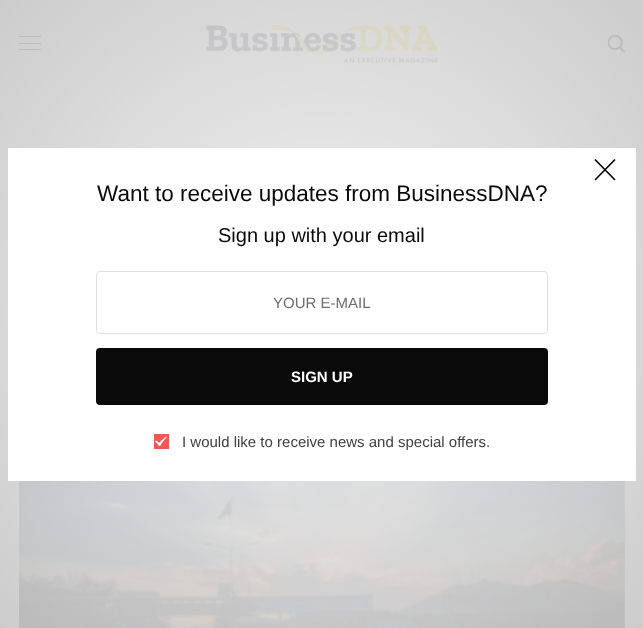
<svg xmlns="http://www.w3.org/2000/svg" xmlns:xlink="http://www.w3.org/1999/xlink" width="643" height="628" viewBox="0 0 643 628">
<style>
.cls-1{font:22.5px Liberation Sans;fill:#0a0a0a}
.cls-2{font:20px Liberation Sans;fill:#0a0a0a}
.cls-3{font:15px Liberation Sans;fill:#6c6c6c}
.cls-4{font:bold 15px Liberation Sans;fill:#ffffff}
.cls-5{font:15px Liberation Sans;fill:#404040}
</style>
<defs>
<radialGradient id="g1" gradientUnits="userSpaceOnUse" cx="322" cy="314" r="450"><stop offset="0" stop-color="#000000" stop-opacity="0.05"/><stop offset="1" stop-color="#000000" stop-opacity="0.2"/></radialGradient>
</defs>
<rect width="100%" height="100%" fill="#ffffff"/>
<rect fill="#e7e7e7" x="19" y="36" width="22" height="1" rx="0.5"/>
<rect fill="#e7e7e7" x="19" y="43" width="22" height="1" rx="0.5"/>
<rect fill="#e7e7e7" x="19" y="49" width="22" height="1" rx="0.5"/>
<image xlink:href="image0.png" x="206" y="25" width="232" height="38"/>
<image xlink:href="image1.png" x="608" y="35" width="17" height="18"/>
<image xlink:href="image2.png" x="19" y="481" width="606" height="147"/>
<rect fill="url(#g1)" x="0" y="0" width="643" height="628"/>
<rect fill="#ffffff" x="8" y="148" width="628" height="333"/>
<path fill="none" stroke="#000000" stroke-width="1.6" d="M595 159.5L615 180M595 180L615 159.5"/>
<rect fill="none" stroke="#dfdfdf" x="96.5" y="271.5" width="451" height="62" rx="3.5"/>
<rect fill="#0a0a0a" x="96" y="348" width="452" height="57" rx="4"/>
<rect fill="#f75454" x="154" y="434" width="15" height="15"/>
<image xlink:href="image3.png" x="155" y="436" width="12" height="11"/>
<text class="cls-1" x="97" y="201">Want to receive updates from BusinessDNA?</text>
<text class="cls-2" x="218" y="242">Sign up with your email</text>
<text class="cls-3" x="273" y="308">YOUR E-MAIL</text>
<text class="cls-4" x="291" y="382">SIGN UP</text>
<text class="cls-5" x="182" y="447">I would like to receive news and special offers.</text>
</svg>
